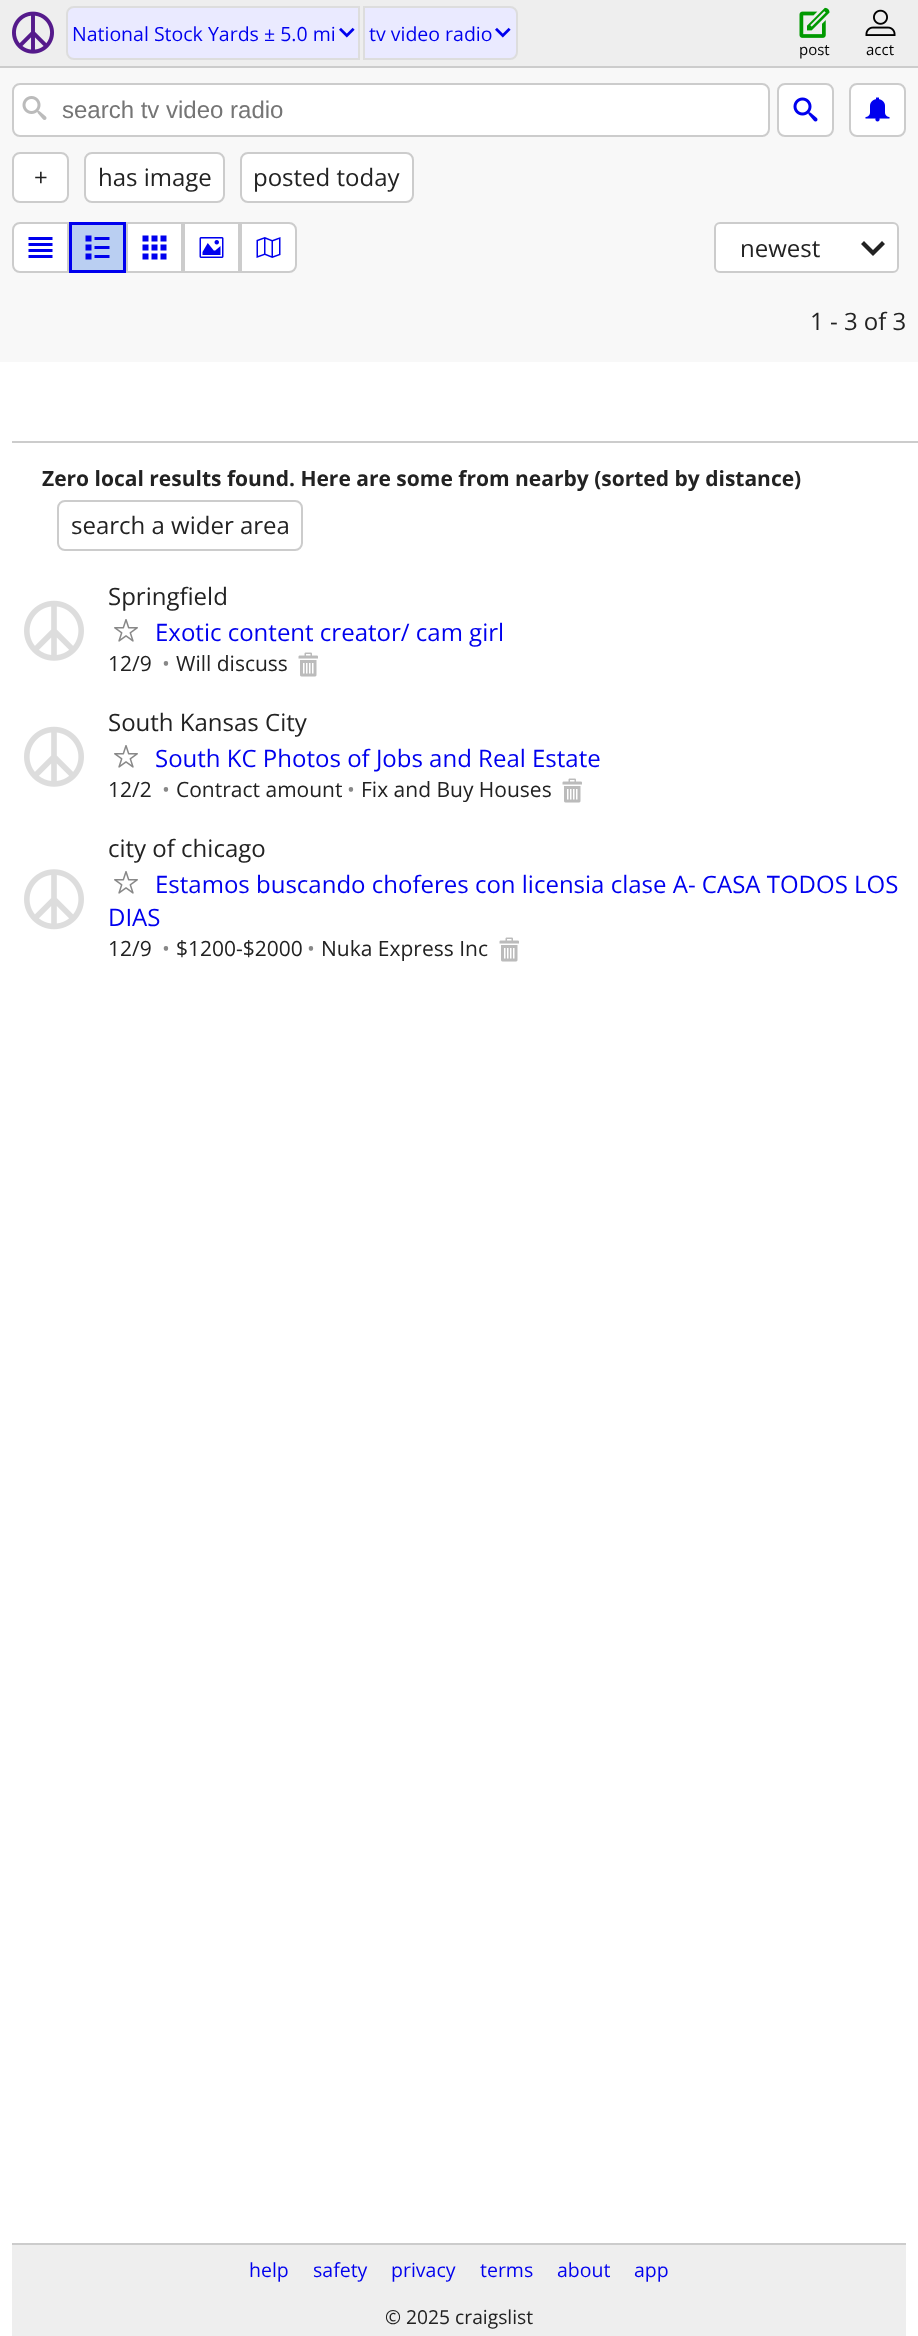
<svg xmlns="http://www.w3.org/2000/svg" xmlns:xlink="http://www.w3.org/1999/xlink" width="918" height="2336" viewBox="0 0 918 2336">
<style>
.cls-1{font:19.5px Open Sans;fill:#0000ee}
.cls-2{font:15px Open Sans;fill:#000000}
.cls-3{font:24px Liberation Sans;fill:#757575}
.cls-4{font:24px Open Sans;fill:#222222}
.cls-5{font:bold 21px Open Sans;fill:#222222}
.cls-6{font:24px Open Sans;fill:#0000ee}
.cls-7{font:21px Open Sans;fill:#222222}
.cls-8{font:21px Open Sans;fill:#888888}
.cls-9{font:19.25px Open Sans;fill:#222222}
</style>
<rect width="100%" height="100%" fill="#ffffff"/>
<rect fill="#eeeeee" x="0" y="0" width="918" height="66"/>
<rect fill="#cccccc" x="0" y="66" width="918" height="2"/>
<image xlink:href="image0.png" x="12" y="11" width="42" height="43"/>
<path fill="#eaeaff" stroke="#dddddd" stroke-width="2" d="M74 7H359V59H74C70 59 67 56 67 52V14C67 10 70 7 74 7Z"/>
<image xlink:href="image1.png" x="339" y="27" width="16" height="11"/>
<path fill="#eaeaff" stroke="#dddddd" stroke-width="2" d="M364 7H510C514 7 517 10 517 14V52C517 56 514 59 510 59H364Z"/>
<image xlink:href="image1.png" x="495" y="27" width="16" height="11"/>
<image xlink:href="image2.png" x="799" y="7" width="31" height="31"/>
<image xlink:href="image3.png" x="865" y="9" width="31" height="27"/>
<rect fill="#f8f8f8" x="0" y="68" width="918" height="294"/>
<rect fill="#ffffff" stroke="#cccccc" stroke-width="2" x="13" y="84" width="756" height="52" rx="7"/>
<image xlink:href="image4.png" x="22" y="96" width="25" height="24"/>
<rect fill="#ffffff" stroke="#cccccc" stroke-width="2" x="778" y="84" width="55" height="52" rx="7"/>
<image xlink:href="image5.png" x="793" y="97" width="25" height="25"/>
<rect fill="#ffffff" stroke="#cccccc" stroke-width="2" x="850" y="84" width="55" height="52" rx="7"/>
<image xlink:href="image6.png" x="865" y="97" width="25" height="25"/>
<rect fill="#ffffff" stroke="#cccccc" stroke-width="2" x="13" y="153" width="55" height="49" rx="7"/>
<rect fill="#ffffff" stroke="#cccccc" stroke-width="2" x="85" y="153" width="139" height="49" rx="7"/>
<rect fill="#ffffff" stroke="#cccccc" stroke-width="2" x="241" y="153" width="172" height="49" rx="7"/>
<path fill="#ffffff" stroke="#cccccc" stroke-width="2" d="M20 223H68V272H20C16 272 13 269 13 265V230C13 226 16 223 20 223Z"/>
<image xlink:href="image7.png" x="28" y="237" width="25" height="21"/>
<rect fill="#bacff2" stroke="#0000ee" stroke-width="3" x="70.5" y="223.5" width="54" height="48"/>
<image xlink:href="image8.png" x="85" y="235" width="25" height="25"/>
<rect fill="#ffffff" stroke="#cccccc" stroke-width="2" x="127" y="223" width="55" height="49"/>
<image xlink:href="image9.png" x="142" y="235" width="25" height="25"/>
<rect fill="#ffffff" stroke="#cccccc" stroke-width="2" x="184" y="223" width="55" height="49"/>
<image xlink:href="image10.png" x="199" y="237" width="25" height="21"/>
<path fill="#ffffff" stroke="#cccccc" stroke-width="2" d="M241 223H289C293 223 296 226 296 230V265C296 269 293 272 289 272H241Z"/>
<image xlink:href="image11.png" x="256" y="237" width="25" height="21"/>
<rect fill="#ffffff" stroke="#cccccc" stroke-width="2" x="715" y="223" width="183" height="49" rx="5"/>
<path fill="#222222" d="M885 244L882 241L873 250L864 241L861 244L873 256Z"/>
<rect fill="#cccccc" x="12" y="441" width="906" height="2"/>
<rect fill="none" stroke="#cccccc" stroke-width="2" x="58" y="501" width="244" height="49" rx="7"/>
<image xlink:href="image12.png" x="24" y="600" width="60" height="61"/>
<image xlink:href="image13.png" x="114" y="619" width="24" height="23"/>
<image xlink:href="image14.png" x="298" y="652" width="20" height="25"/>
<image xlink:href="image12.png" x="24" y="726" width="60" height="61"/>
<image xlink:href="image13.png" x="114" y="745" width="24" height="23"/>
<image xlink:href="image14.png" x="562" y="778" width="20" height="25"/>
<image xlink:href="image15.png" x="24" y="869" width="60" height="61"/>
<image xlink:href="image13.png" x="114" y="871" width="24" height="23"/>
<image xlink:href="image14.png" x="499" y="937" width="20" height="25"/>
<rect fill="#eeeeee" x="12" y="2245" width="894" height="91"/>
<rect fill="#cccccc" x="12" y="2243" width="894" height="2"/>
<text class="cls-1" x="72" y="41">National Stock Yards ± 5.0 mi</text>
<text class="cls-1" x="369" y="41">tv video radio</text>
<text class="cls-2" x="799" y="55">post</text>
<text class="cls-2" x="866" y="55">acct</text>
<text class="cls-3" x="62" y="118">search tv video radio</text>
<text class="cls-4" x="34" y="186">+</text>
<text class="cls-4" x="98" y="186">has image</text>
<text class="cls-4" x="253" y="186">posted today</text>
<text class="cls-4" x="740" y="257">newest</text>
<text class="cls-4" x="810" y="330">1 - 3 of 3</text>
<text class="cls-5" x="42" y="486">Zero local results found. Here are some from nearby (sorted by distance)</text>
<text class="cls-4" x="71" y="534">search a wider area</text>
<text class="cls-4" x="108" y="605">Springfield</text>
<text class="cls-6" x="155" y="641">Exotic content creator/ cam girl</text>
<text class="cls-7" x="108" y="671">12/9</text>
<text class="cls-8" x="162" y="671">•</text>
<text class="cls-7" x="176" y="671">Will discuss</text>
<text class="cls-4" x="108" y="731">South Kansas City</text>
<text class="cls-6" x="155" y="767">South KC Photos of Jobs and Real Estate</text>
<text class="cls-7" x="108" y="797">12/2</text>
<text class="cls-8" x="162" y="797">•</text>
<text class="cls-7" x="176" y="797">Contract amount</text>
<text class="cls-8" x="347" y="797">•</text>
<text class="cls-7" x="361" y="797">Fix and Buy Houses</text>
<text class="cls-4" x="108" y="857">city of chicago</text>
<text class="cls-6" x="155" y="893">Estamos buscando choferes con licensia clase A- CASA TODOS LOS</text>
<text class="cls-6" x="108" y="926">DIAS</text>
<text class="cls-7" x="108" y="956">12/9</text>
<text class="cls-8" x="162" y="956">•</text>
<text class="cls-7" x="176" y="956">$1200-$2000</text>
<text class="cls-8" x="307" y="956">•</text>
<text class="cls-7" x="321" y="956">Nuka Express Inc</text>
<text class="cls-1" x="249" y="2277">help</text>
<text class="cls-1" x="313" y="2277">safety</text>
<text class="cls-1" x="391" y="2277">privacy</text>
<text class="cls-1" x="480" y="2277">terms</text>
<text class="cls-1" x="557" y="2277">about</text>
<text class="cls-1" x="634" y="2277">app</text>
<text class="cls-9" x="385" y="2324">© 2025 craigslist</text>
</svg>
